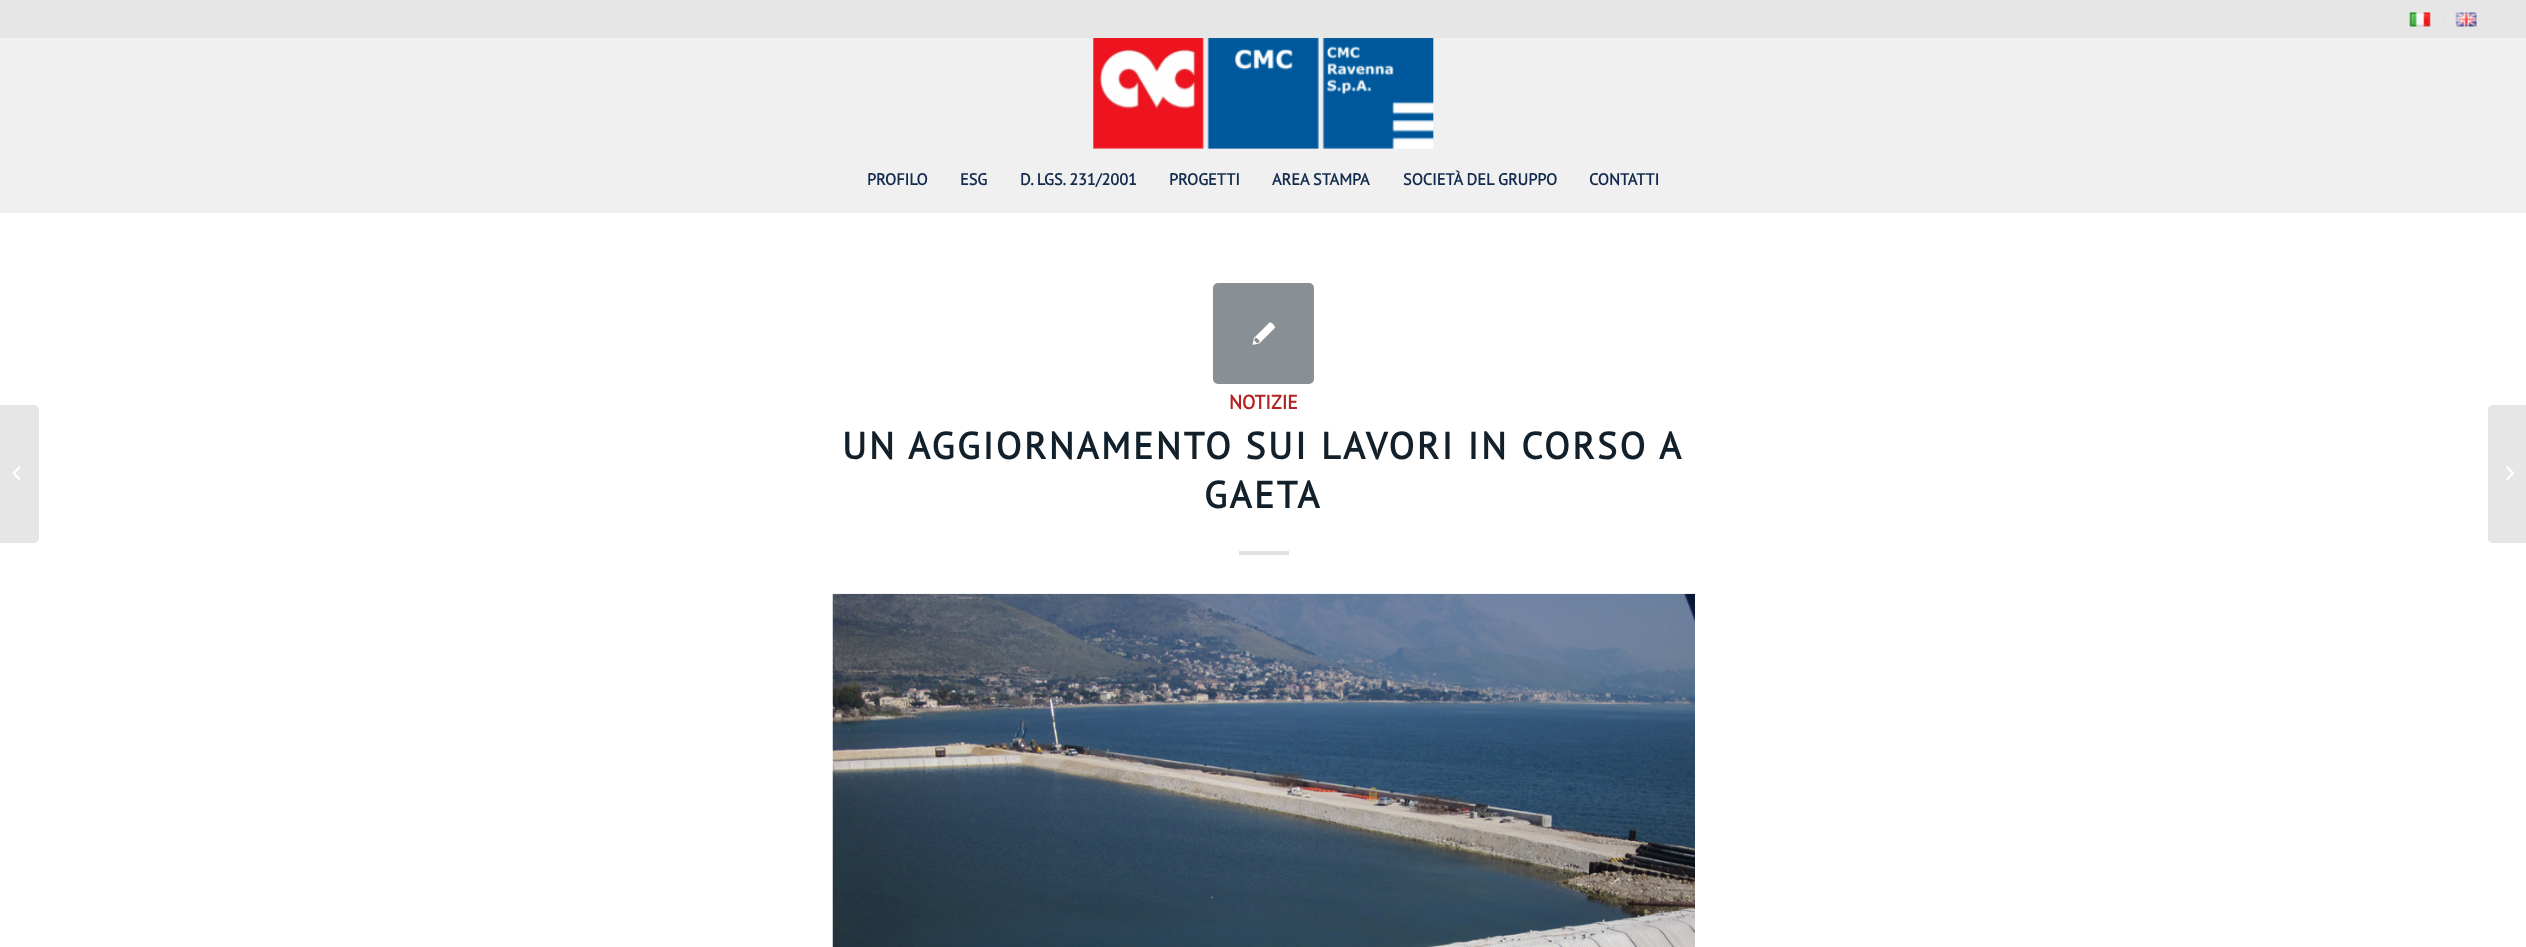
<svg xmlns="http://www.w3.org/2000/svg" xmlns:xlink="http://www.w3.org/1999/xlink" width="2526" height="947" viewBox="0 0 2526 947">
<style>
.cls-1{font:bold 16.25px PT Sans;fill:#112a4d}
.cls-2{font:bold 19.5px PT Sans;fill:#b22222}
.cls-3{font:bold 37.5px PT Sans;letter-spacing:2.5px;fill:#11202a}
</style>
<rect width="100%" height="100%" fill="#f0f0f0"/>
<rect fill="#e6e6e6" x="0" y="0" width="2526" height="38"/>
<rect fill="#e1e1e1" x="2443" y="13" width="1" height="16"/>
<image xlink:href="image0.png" x="2409" y="12" width="22" height="15"/>
<image xlink:href="image1.png" x="2455" y="12" width="22" height="15"/>
<image xlink:href="image2.png" x="1093" y="38" width="341" height="111"/>
<rect fill="#ffffff" x="0" y="213" width="2526" height="734"/>
<path fill="#e6e6e6" d="M0 405H34C37 405 39 407 39 410V538C39 541 37 543 34 543H0Z"/>
<image xlink:href="image3.png" x="12" y="466" width="9" height="14"/>
<rect fill="#889095" x="1213" y="283" width="101" height="101" rx="5"/>
<image xlink:href="image4.png" x="1252" y="322" width="23" height="23"/>
<rect fill="#e1e1e1" x="1239" y="551" width="50" height="4"/>
<image xlink:href="image5.png" x="832" y="593" width="863" height="354"/>
<path fill="#e6e6e6" d="M2493 405H2526V543H2493C2490 543 2488 541 2488 538V410C2488 407 2490 405 2493 405Z"/>
<image xlink:href="image6.png" x="2506" y="466" width="8" height="14"/>
<text class="cls-1" x="867" y="185">PROFILO</text>
<text class="cls-1" x="960" y="185">ESG</text>
<text class="cls-1" x="1020" y="185">D. LGS. 231/2001</text>
<text class="cls-1" x="1169" y="185">PROGETTI</text>
<text class="cls-1" x="1272" y="185">AREA STAMPA</text>
<text class="cls-1" x="1403" y="185">SOCIETÀ DEL GRUPPO</text>
<text class="cls-1" x="1589" y="185">CONTATTI</text>
<text class="cls-2" x="1229" y="409">NOTIZIE</text>
<text class="cls-3" x="842" y="459">UN AGGIORNAMENTO SUI LAVORI IN CORSO A</text>
<text class="cls-3" x="1204" y="508">GAETA</text>
</svg>
